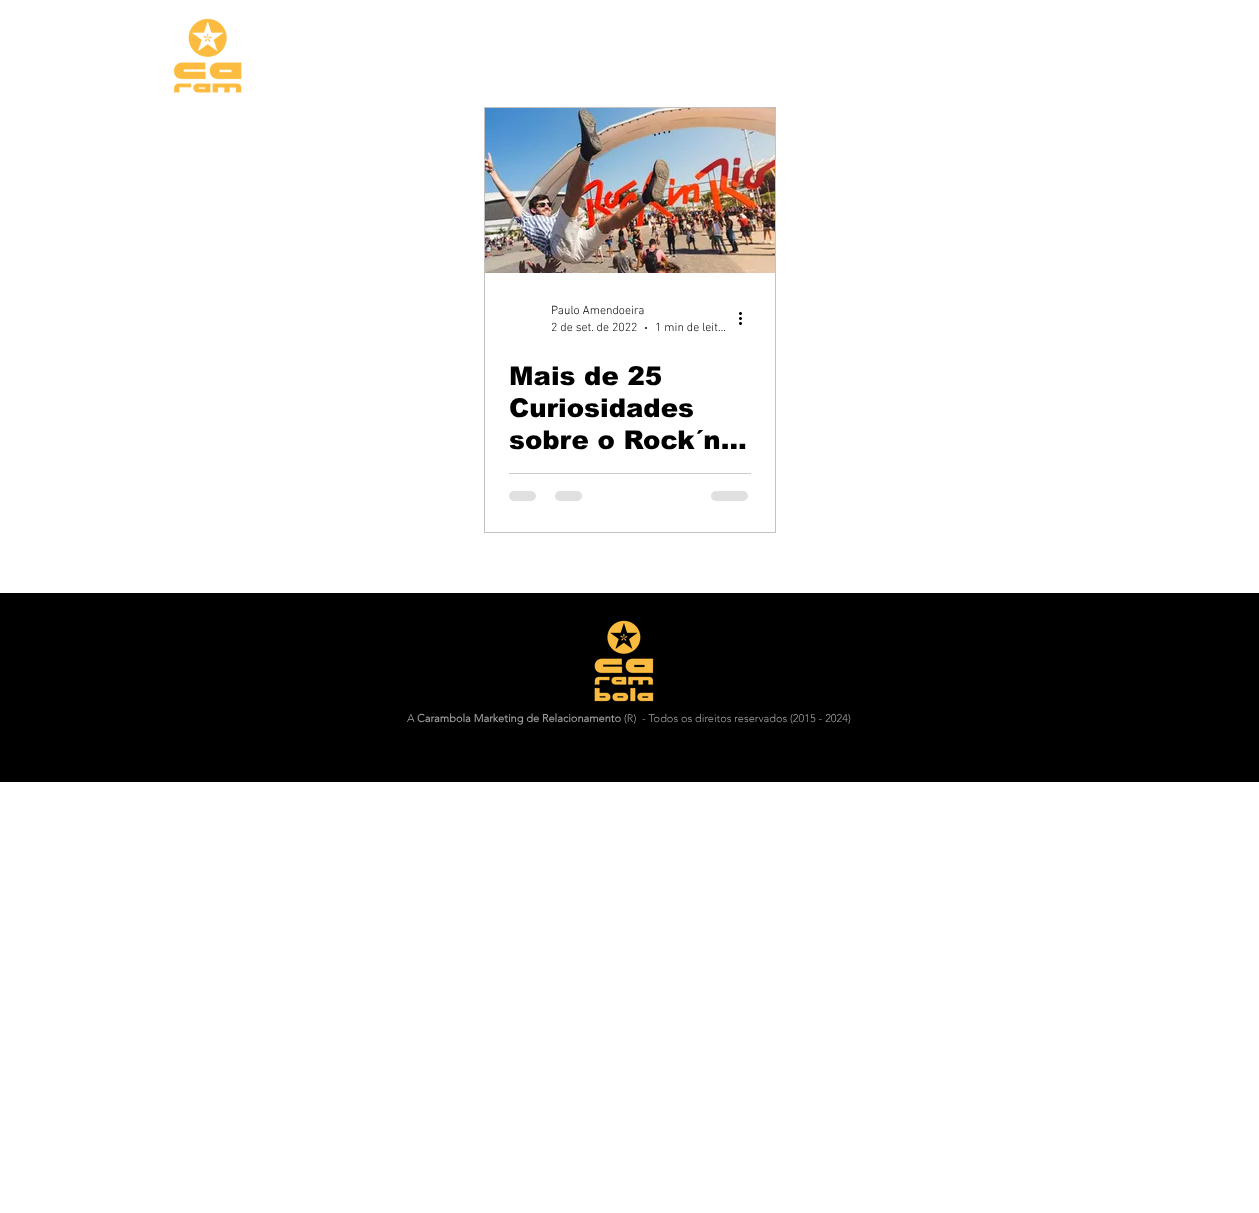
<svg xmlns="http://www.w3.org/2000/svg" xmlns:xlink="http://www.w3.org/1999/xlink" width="1259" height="1213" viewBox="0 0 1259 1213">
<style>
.cls-1{font:300 12px 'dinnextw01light';fill:#000000}
.cls-2{font:900 26px arial;fill:#000000}
.cls-3{font:300 11px 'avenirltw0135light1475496';fill:#a0a09f}
.cls-4{font:bold 11px 'avenirltw0135light1475496';fill:#a0a09f}
</style>
<rect width="100%" height="100%" fill="#ffffff"/>
<image xlink:href="image0.png" x="173" y="18" width="69" height="75"/>
<rect fill="none" stroke="#c2c2c2" x="484.5" y="107.5" width="291" height="425"/>
<image xlink:href="image1.png" x="485" y="108" width="290" height="165"/>
<circle fill="#000000" cx="646" cy="328" r="1"/>
<image xlink:href="image2.png" x="739" y="312" width="3" height="13"/>
<rect fill="#cccccc" x="509" y="473" width="242" height="1"/>
<rect fill="#e0e0e0" x="509" y="491" width="27" height="10" rx="5"/>
<rect fill="#e0e0e0" x="555" y="491" width="27" height="10" rx="5"/>
<rect fill="#e0e0e0" x="711" y="491" width="37" height="10" rx="5"/>
<rect fill="#000000" x="0" y="593" width="1259" height="189"/>
<image xlink:href="image3.png" x="594" y="620" width="60" height="82"/>
<text class="cls-1"><tspan x="551" y="314">Paulo Amendoeira</tspan><tspan x="551" y="331">2 de set. de 2022</tspan></text>
<text class="cls-1" x="655" y="331">1 min de leit…</text>
<text class="cls-2"><tspan x="509" y="385">Mais de 25</tspan><tspan x="509" y="417">Curiosidades</tspan><tspan x="509" y="449">sobre o Rock´n…</tspan></text>
<text class="cls-3" x="407" y="722">A</text>
<text class="cls-4" x="417" y="722">Carambola Marketing de Relacionamento</text>
<text class="cls-3" x="624" y="722">(R)</text>
<text class="cls-3" x="642" y="722">- Todos os direitos reservados (2015 - 2024)</text>
</svg>
